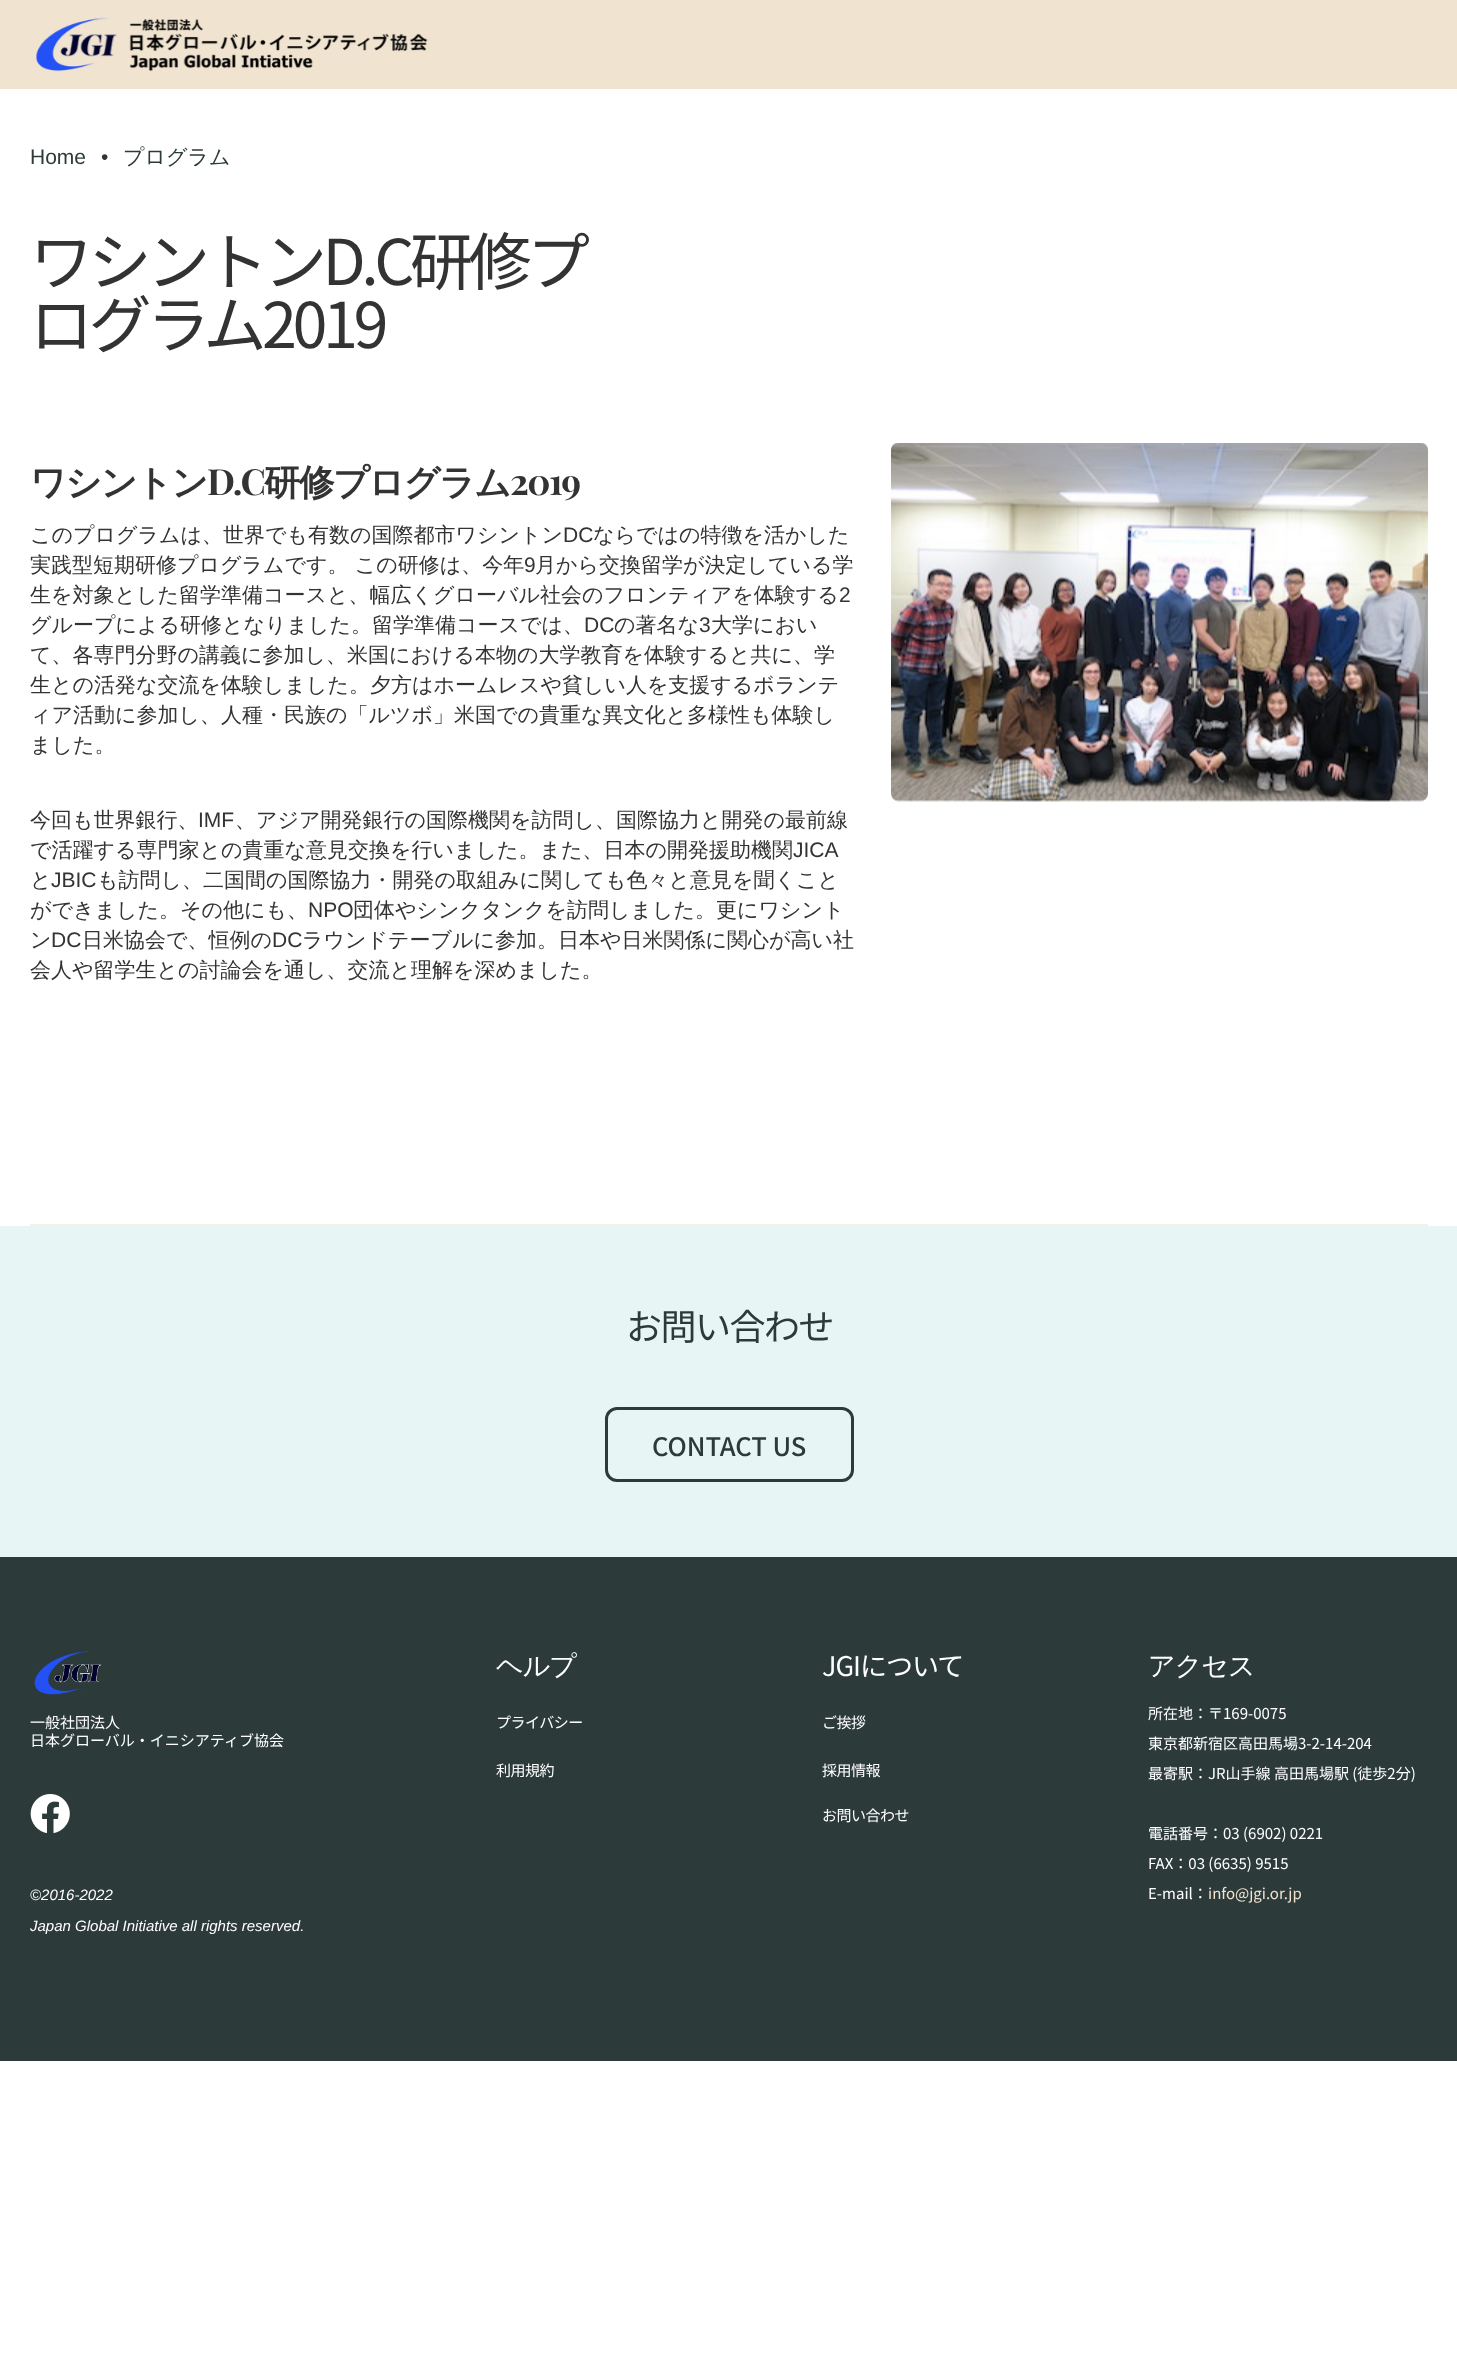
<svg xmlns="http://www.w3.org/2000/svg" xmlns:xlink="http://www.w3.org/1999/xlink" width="1457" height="2354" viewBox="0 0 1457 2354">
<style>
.cls-1{font:21px Liberation Sans;fill:#2c3a3a}
.cls-2{font:21px Liberation Sans;fill:#333333}
.cls-3{font:500 21px WenQuanYi Zen Hei;fill:#2c3a3a}
.cls-4{font:63px Noto Sans JP;letter-spacing:-4.5px;fill:#333333}
.cls-5{font:bold 36px WenQuanYi Zen Hei;letter-spacing:-1.5px;fill:#333333}
.cls-6{font:bold 36px Playfair Display;letter-spacing:-1.5px;fill:#333333}
.cls-7{font:500 21px WenQuanYi Zen Hei;fill:#333333}
.cls-8{font:36px Noto Sans JP;letter-spacing:-1.5px;fill:#2c3a3a}
.cls-9{font:500 25.5px Noto Sans JP;fill:#2c3a3a}
.cls-10{font:15px Noto Sans JP;fill:#ffffff}
.cls-11{font:italic 15px Liberation Sans;fill:#ffffff}
.cls-12{font:500 27px WenQuanYi Zen Hei;letter-spacing:-1px;fill:#ffffff}
.cls-13{font:15px Noto Sans JP;letter-spacing:-0.5px;fill:#ffffff}
.cls-14{font:27px Noto Sans JP;letter-spacing:-1px;fill:#ffffff}
.cls-15{font:15px Noto Sans JP;fill:#f0e3d0}
</style>
<rect width="100%" height="100%" fill="#ffffff"/>
<rect fill="#f0e3d0" x="0" y="0" width="1457" height="89"/>
<image xlink:href="image0.png" x="36" y="17" width="392" height="55"/>
<rect fill="#f4f0eb" x="30" y="1224" width="1398" height="2"/>
<image xlink:href="image1.png" x="891" y="443" width="537" height="359"/>
<rect fill="#2c3a3a" x="0" y="1557" width="1457" height="504"/>
<rect fill="#e7f5f5" x="0" y="1226" width="1457" height="331"/>
<rect fill="none" stroke="#2c3a3a" stroke-width="3" x="606.5" y="1408.5" width="246" height="72" rx="10.5"/>
<image xlink:href="image2.png" x="34" y="1650" width="68" height="45"/>
<image xlink:href="image3.png" x="30" y="1794" width="40" height="39"/>
<text class="cls-1" x="30" y="164">Home</text>
<text class="cls-2" x="101" y="164">•</text>
<text class="cls-3" x="123" y="164">プログラム</text>
<text class="cls-4"><tspan x="30" y="285">ワシントンD.C研修プ</tspan><tspan x="30" y="348">ログラム2019</tspan></text>
<text class="cls-5" x="30" y="495">ワシントン</text>
<text class="cls-6" x="207" y="495">D.C</text>
<text class="cls-5" x="264" y="495">研修プログラム</text>
<text class="cls-6" x="510" y="495">2019</text>
<text class="cls-7" x="30" y="542">このプログラムは、世界でも有数の国際都市ワシントン</text>
<text class="cls-2" x="563" y="542">DC</text>
<text class="cls-7" x="593" y="542">ならではの特徴を活かした</text>
<text class="cls-7" x="30" y="572">実践型短期研修プログラムです。 この研修は、今年</text>
<text class="cls-2" x="524" y="572">9</text>
<text class="cls-7" x="535" y="572">月から交換留学が決定している学</text>
<text class="cls-7" x="30" y="602">生を対象とした留学準備コースと、幅広くグローバル社会のフロンティアを体験する</text>
<text class="cls-2" x="839" y="602">2</text>
<text class="cls-7" x="30" y="632">グループによる研修となりました。留学準備コースでは、</text>
<text class="cls-2" x="584" y="632">DC</text>
<text class="cls-7" x="614" y="632">の著名な</text>
<text class="cls-2" x="699" y="632">3</text>
<text class="cls-7" x="711" y="632">大学におい</text>
<text class="cls-7"><tspan x="30" y="662">て、各専門分野の講義に参加し、米国における本物の大学教育を体験すると共に、学</tspan><tspan x="30" y="692">生との活発な交流を体験しました。夕方はホームレスや貧しい人を支援するボランテ</tspan><tspan x="30" y="722">ィア活動に参加し、人種・民族の「ルツボ」米国での貴重な異文化と多様性も体験し</tspan><tspan x="30" y="752">ました。</tspan></text>
<text class="cls-7" x="30" y="827">今回も世界銀行、</text>
<text class="cls-2" x="198" y="827">IMF</text>
<text class="cls-7" x="235" y="827">、アジア開発銀行の国際機関を訪問し、国際協力と開発の最前線</text>
<text class="cls-7" x="30" y="857">で活躍する専門家との貴重な意見交換を行いました。また、日本の開発援助機関</text>
<text class="cls-2" x="793" y="857">JICA</text>
<text class="cls-7" x="30" y="887">と</text>
<text class="cls-2" x="51" y="887">JBIC</text>
<text class="cls-7" x="97" y="887">も訪問し、二国間の国際協力・開発の取組みに関しても色々と意見を聞くこと</text>
<text class="cls-7" x="30" y="917">ができました。その他にも、</text>
<text class="cls-2" x="308" y="917">NPO</text>
<text class="cls-7" x="353" y="917">団体やシンクタンクを訪問しました。更にワシント</text>
<text class="cls-7" x="30" y="947">ン</text>
<text class="cls-2" x="51" y="947">DC</text>
<text class="cls-7" x="82" y="947">日米協会で、恒例の</text>
<text class="cls-2" x="272" y="947">DC</text>
<text class="cls-7" x="302" y="947">ラウンドテーブルに参加。日本や日米関係に関心が高い社</text>
<text class="cls-7" x="30" y="977">会人や留学生との討論会を通し、交流と理解を深めました。</text>
<text class="cls-8" x="626" y="1340">お問い合わせ</text>
<text class="cls-9" x="652" y="1456">CONTACT US</text>
<text class="cls-10"><tspan x="30" y="1728">一般社団法人</tspan><tspan x="30" y="1746">日本グローバル・イニシアティブ協会</tspan></text>
<text class="cls-11" x="30" y="1900">©2016-2022</text>
<text class="cls-11" x="30" y="1931">Japan Global Initiative all rights reserved.</text>
<text class="cls-12" x="496" y="1675">ヘルプ</text>
<text class="cls-13" x="496" y="1728">プライバシー</text>
<text class="cls-13" x="496" y="1776">利用規約</text>
<text class="cls-14" x="822" y="1676">JGIについて</text>
<text class="cls-13" x="822" y="1728">ご挨拶</text>
<text class="cls-13" x="822" y="1776">採用情報</text>
<text class="cls-13" x="822" y="1821">お問い合わせ</text>
<text class="cls-12" x="1148" y="1675">アクセス</text>
<text class="cls-10" x="1148" y="1719">所在地：〒169-0075</text>
<text class="cls-10" x="1148" y="1749">東京都新宿区高田馬場3-2-14-204</text>
<text class="cls-10" x="1148" y="1779">最寄駅：JR山手線 高田馬場駅 (徒歩2分)</text>
<text class="cls-10" x="1148" y="1839">電話番号：03 (6902) 0221</text>
<text class="cls-10" x="1148" y="1869">FAX：03 (6635) 9515</text>
<text class="cls-10" x="1148" y="1899">E-mail：</text>
<text class="cls-15" x="1208" y="1899">info@jgi.or.jp</text>
</svg>
